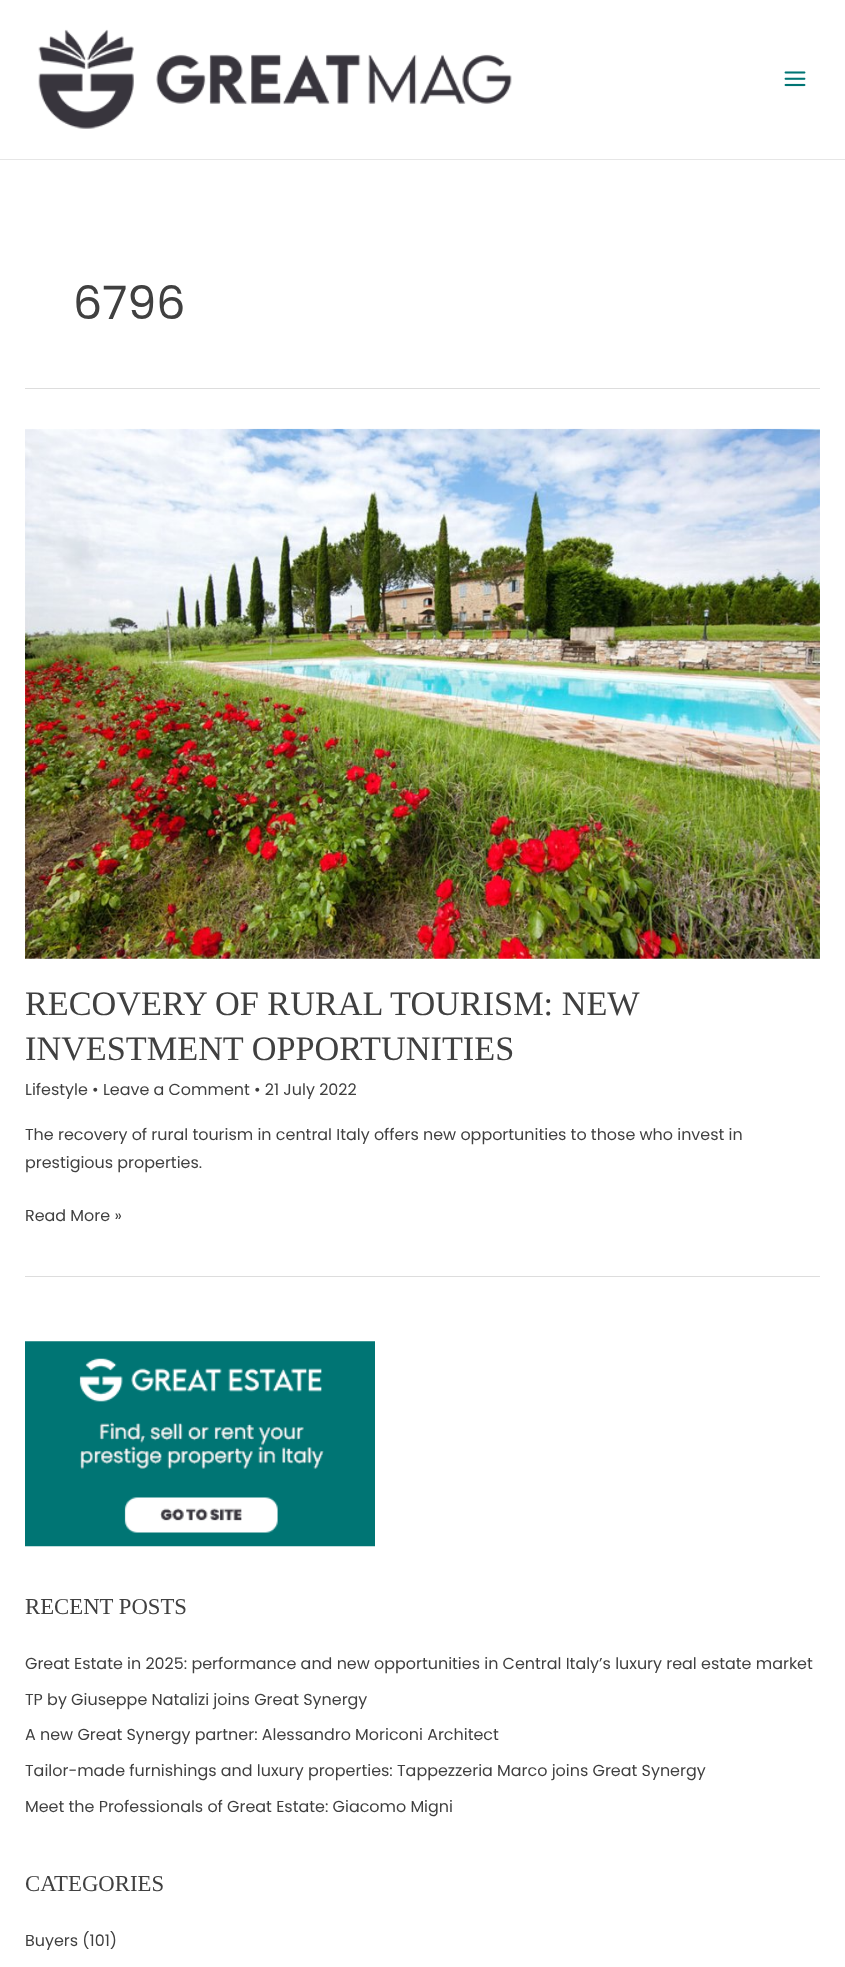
<svg xmlns="http://www.w3.org/2000/svg" xmlns:xlink="http://www.w3.org/1999/xlink" width="845" height="1967" viewBox="0 0 845 1967">
<style>
.cls-1{font:46px Poppins;fill:#404040}
.cls-2{font:34.25px Liberation Serif;fill:#404040}
.cls-3{font:15.95px Poppins;fill:#404040}
.cls-4{font:22.75px Liberation Serif;fill:#404040}
</style>
<rect width="100%" height="100%" fill="#ffffff"/>
<rect fill="#e6e6e6" x="0" y="159" width="845" height="1"/>
<image xlink:href="image0.png" x="38" y="29" width="474" height="100"/>
<image xlink:href="image1.png" x="784" y="71" width="22" height="16"/>
<rect fill="#dddddd" x="25" y="388" width="795" height="1"/>
<rect fill="#dddddd" x="25" y="1276" width="795" height="1"/>
<image xlink:href="image2.png" x="25" y="428" width="795" height="531"/>
<image xlink:href="image3.png" x="25" y="1341" width="350" height="206"/>
<text class="cls-1" x="73" y="319">6796</text>
<text class="cls-2"><tspan x="25" y="1015">RECOVERY OF RURAL TOURISM: NEW</tspan><tspan x="25" y="1060">INVESTMENT OPPORTUNITIES</tspan></text>
<text class="cls-3" x="25" y="1095">Lifestyle • Leave a Comment • 21 July 2022</text>
<text class="cls-3"><tspan x="25" y="1140">The recovery of rural tourism in central Italy offers new opportunities to those who invest in</tspan><tspan x="25" y="1168">prestigious properties.</tspan></text>
<text class="cls-3" x="25" y="1221">Read More »</text>
<text class="cls-4" x="25" y="1614">RECENT POSTS</text>
<text class="cls-3" x="25" y="1669">Great Estate in 2025: performance and new opportunities in Central Italy’s luxury real estate market</text>
<text class="cls-3" x="25" y="1705">TP by Giuseppe Natalizi joins Great Synergy</text>
<text class="cls-3" x="25" y="1740">A new Great Synergy partner: Alessandro Moriconi Architect</text>
<text class="cls-3" x="25" y="1776">Tailor-made furnishings and luxury properties: Tappezzeria Marco joins Great Synergy</text>
<text class="cls-3" x="25" y="1812">Meet the Professionals of Great Estate: Giacomo Migni</text>
<text class="cls-4" x="25" y="1891">CATEGORIES</text>
<text class="cls-3" x="25" y="1946">Buyers (101)</text>
</svg>
